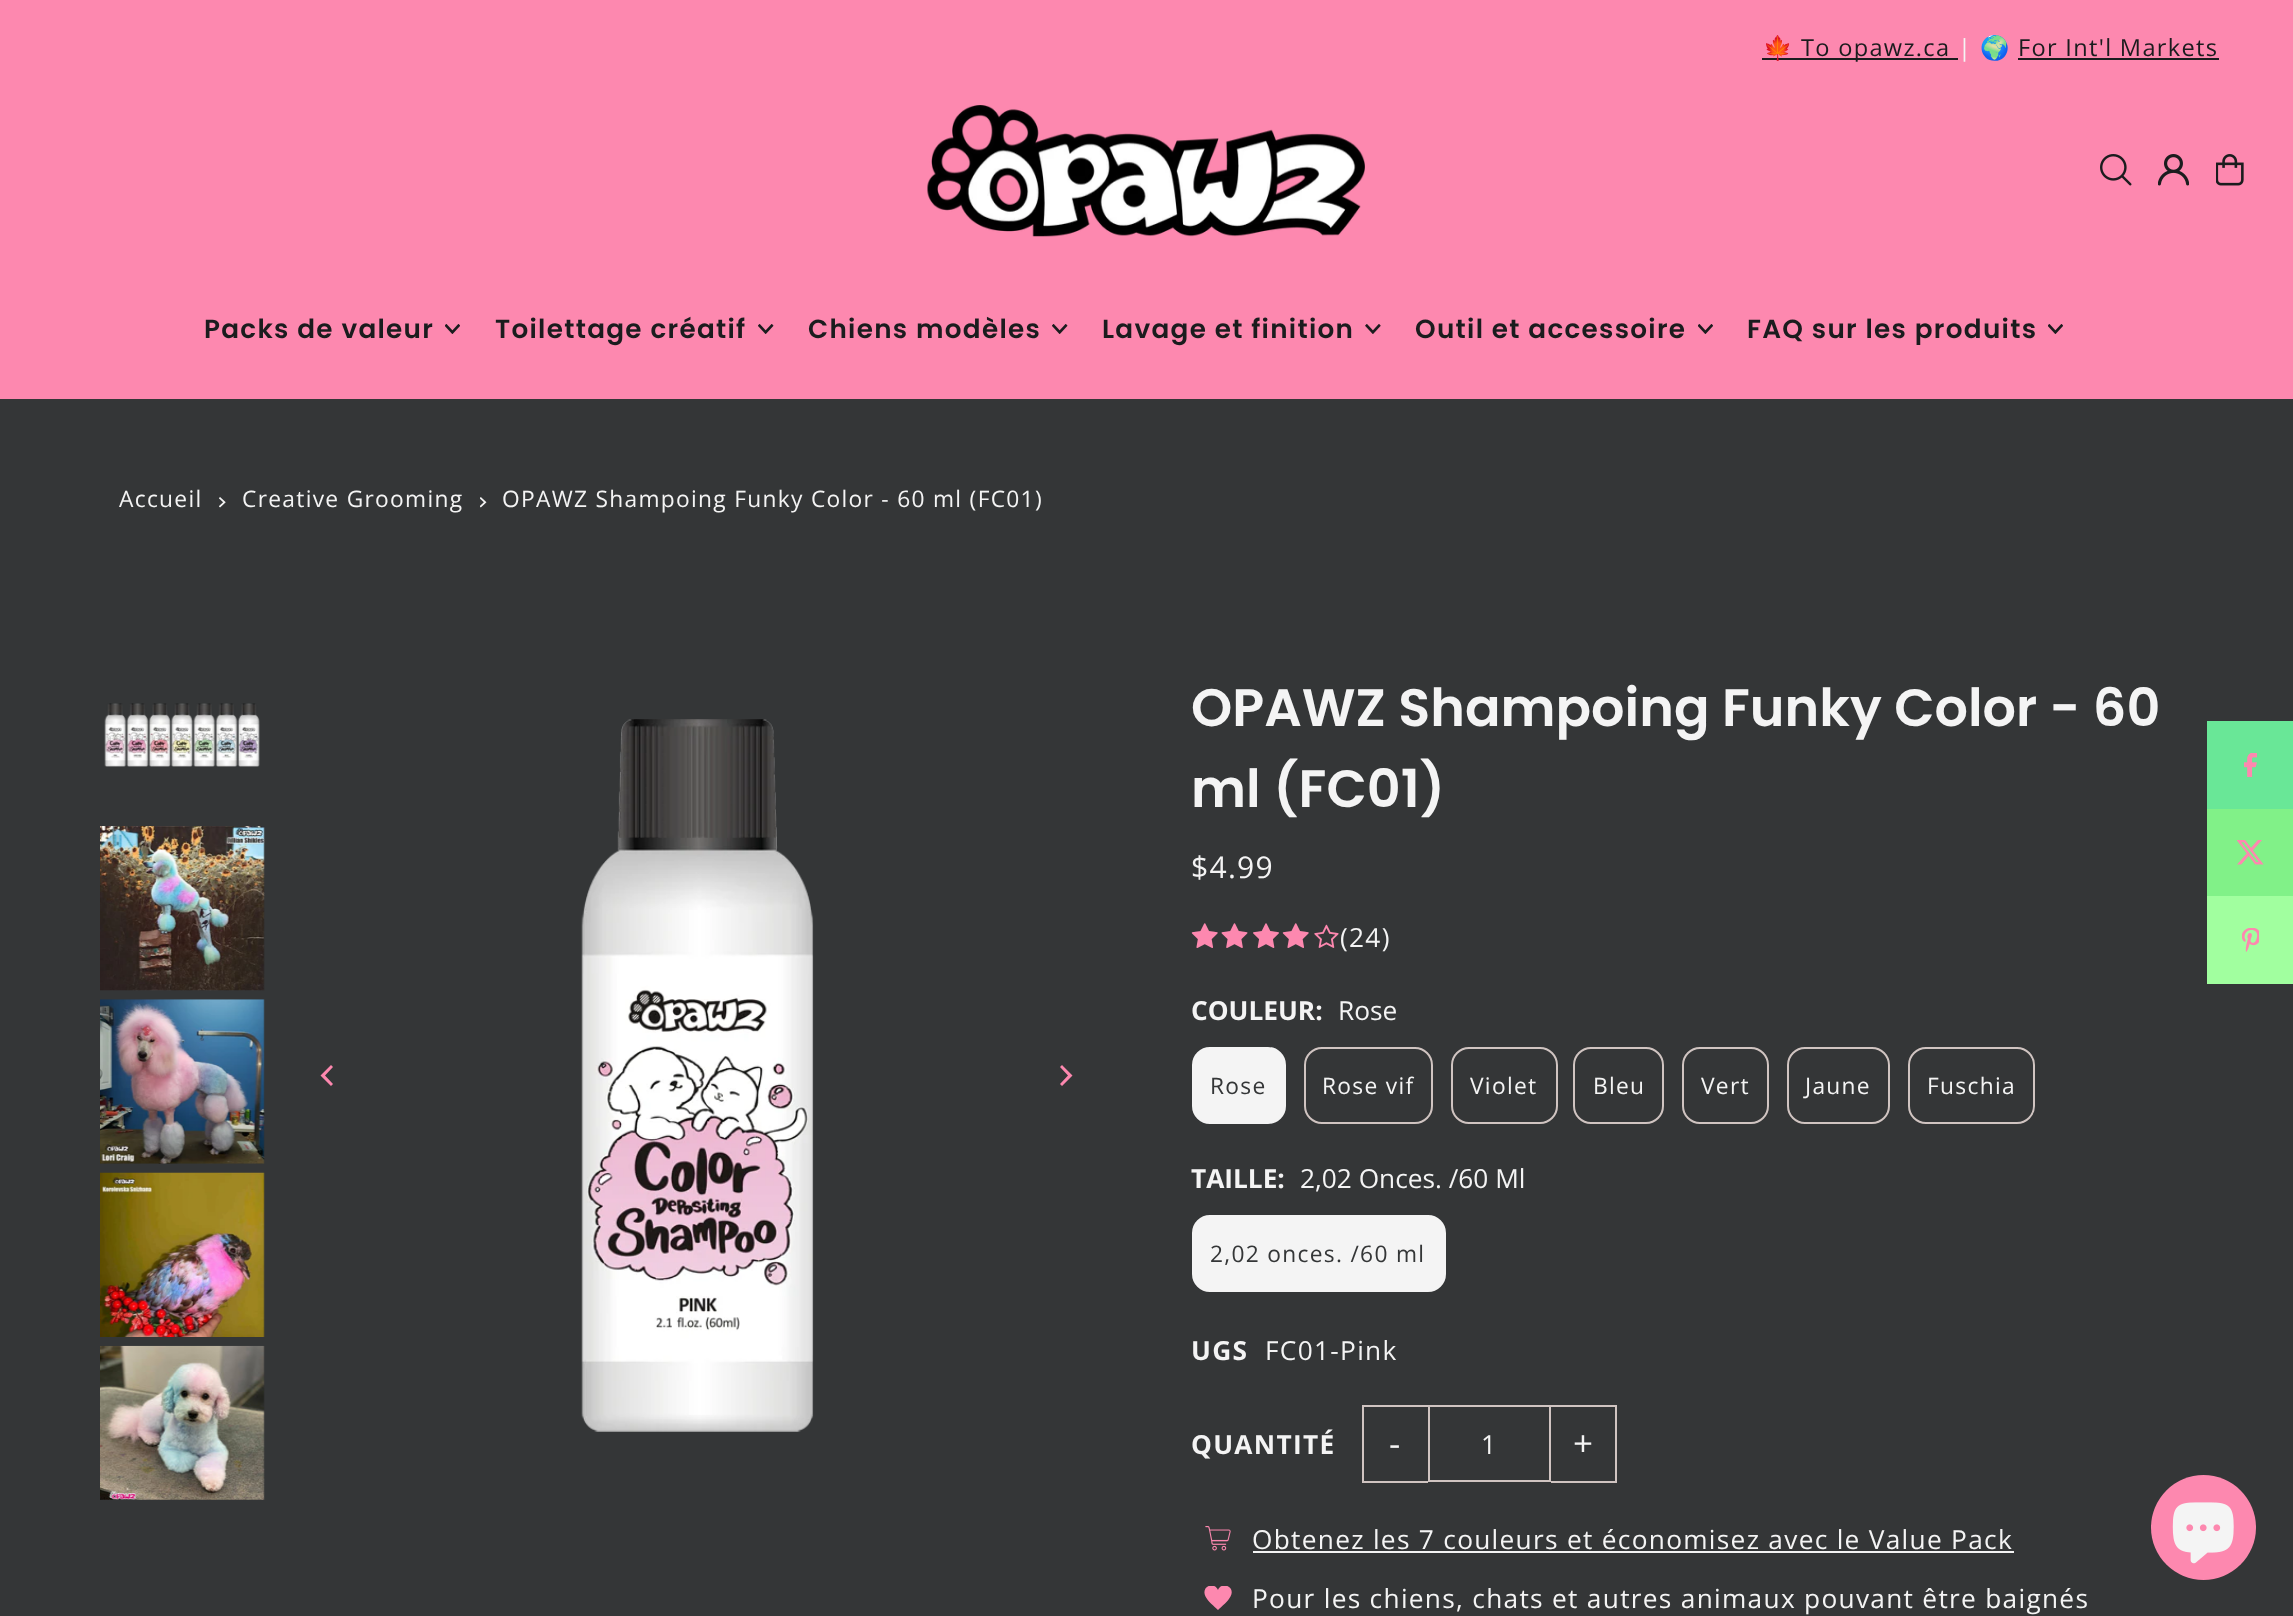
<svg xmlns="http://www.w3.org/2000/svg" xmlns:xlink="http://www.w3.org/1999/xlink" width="2293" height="1616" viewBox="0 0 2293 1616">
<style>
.cls-1{font:23.6px Noto Color Emoji;letter-spacing:1.3px;fill:#1b1c1e}
.cls-2{font:23.6px Open Sans;letter-spacing:1.3px;fill:#1b1c1e}
.cls-3{font:23.6px Open Sans;letter-spacing:1.3px;fill:#f4f4f4}
.cls-4{font:600 26.25px Poppins;letter-spacing:1.3px;fill:#1b1c1e}
.cls-5{font:22.75px Open Sans;letter-spacing:1.3px;fill:#f4f4f4}
.cls-6{font:600 52.5px Poppins;fill:#f4f4f4}
.cls-7{font:30px Open Sans;letter-spacing:1.3px;fill:#f4f4f4}
.cls-8{font:26.25px Open Sans;letter-spacing:1.3px;fill:#f4f4f4}
.cls-9{font:bold 26.25px Open Sans;fill:#f4f4f4}
.cls-10{font:26.25px Open Sans;fill:#f4f4f4}
.cls-11{font:22.75px Open Sans;letter-spacing:1.3px;fill:#343637}
.cls-12{font:bold 26.25px Open Sans;letter-spacing:1.3px;fill:#f4f4f4}
.cls-13{font:35px Open Sans;letter-spacing:2px;fill:#f4f4f4}
</style>
<defs>
<clipPath id="clip1"><rect x="1192" y="1586" width="52" height="24"/></clipPath>
</defs>
<rect width="100%" height="100%" fill="#343637"/>
<rect fill="#fd88af" x="0" y="0" width="2293" height="399"/>
<rect fill="#1b1c1e" x="1762" y="58" width="196" height="2"/>
<rect fill="#1b1c1e" x="2018" y="58" width="201" height="2"/>
<image xlink:href="image0.png" x="927" y="105" width="438" height="132"/>
<image xlink:href="image1.png" x="2100" y="154" width="32" height="32"/>
<image xlink:href="image2.png" x="2158" y="154" width="31" height="32"/>
<image xlink:href="image3.png" x="2216" y="154" width="28" height="32"/>
<image xlink:href="image4.png" x="445" y="324" width="15" height="10"/>
<image xlink:href="image5.png" x="758" y="324" width="16" height="10"/>
<image xlink:href="image5.png" x="1052" y="324" width="16" height="10"/>
<image xlink:href="image6.png" x="1365" y="324" width="16" height="10"/>
<image xlink:href="image4.png" x="1698" y="324" width="15" height="10"/>
<image xlink:href="image4.png" x="2048" y="324" width="15" height="10"/>
<image xlink:href="image7.png" x="219" y="497" width="7" height="11"/>
<image xlink:href="image8.png" x="480" y="497" width="7" height="11"/>
<image xlink:href="image9.png" x="104" y="703" width="156" height="64"/>
<image xlink:href="image10.png" x="100" y="826" width="165" height="165"/>
<image xlink:href="image11.png" x="100" y="999" width="165" height="165"/>
<image xlink:href="image12.png" x="100" y="1172" width="165" height="165"/>
<image xlink:href="image13.png" x="100" y="1345" width="165" height="155"/>
<path fill="#fd88af" d="M320.5 1075.5L331 1086L333 1084L325 1075.5L333 1067L331 1065Z"/>
<image xlink:href="image14.png" x="581" y="719" width="233" height="713"/>
<path fill="#fd88af" d="M1072.5 1075.5L1062 1065L1060 1067L1068 1075.5L1060 1084L1062 1086Z"/>
<image xlink:href="image15.png" x="1191" y="923" width="27" height="25"/>
<image xlink:href="image16.png" x="1221" y="923" width="27" height="25"/>
<image xlink:href="image17.png" x="1253" y="923" width="26" height="25"/>
<image xlink:href="image15.png" x="1282" y="923" width="27" height="25"/>
<image xlink:href="image18.png" x="1314" y="924" width="25" height="24"/>
<rect fill="#f4f4f4" stroke="#f4f4f4" stroke-width="2" x="1193" y="1048" width="92" height="75" rx="17"/>
<rect fill="none" stroke="#d0c4c1" stroke-width="2" x="1305" y="1048" width="127" height="75" rx="17"/>
<rect fill="none" stroke="#d0c4c1" stroke-width="2" x="1452" y="1048" width="105" height="75" rx="17"/>
<rect fill="none" stroke="#d0c4c1" stroke-width="2" x="1574" y="1048" width="89" height="75" rx="17"/>
<rect fill="none" stroke="#d0c4c1" stroke-width="2" x="1683" y="1048" width="85" height="75" rx="17"/>
<rect fill="none" stroke="#d0c4c1" stroke-width="2" x="1788" y="1048" width="101" height="75" rx="17"/>
<rect fill="none" stroke="#d0c4c1" stroke-width="2" x="1909" y="1048" width="125" height="75" rx="17"/>
<rect fill="#f4f4f4" stroke="#f4f4f4" stroke-width="2" x="1193" y="1216" width="252" height="75" rx="17"/>
<rect fill="#d0c4c1" x="1362" y="1405" width="66" height="2"/>
<rect fill="#d0c4c1" x="1362" y="1481" width="66" height="2"/>
<rect fill="#d0c4c1" x="1362" y="1405" width="2" height="77"/>
<rect fill="none" stroke="#d0c4c1" stroke-width="2" x="1429" y="1406" width="121" height="75"/>
<rect fill="#d0c4c1" x="1551" y="1405" width="66" height="2"/>
<rect fill="#d0c4c1" x="1615" y="1405" width="2" height="77"/>
<rect fill="#d0c4c1" x="1551" y="1481" width="66" height="2"/>
<image xlink:href="image19.png" x="1205" y="1526" width="26" height="25"/>
<rect fill="#f4f4f4" x="1253" y="1551" width="761" height="2"/>
<g clip-path="url(#clip1)">
<path fill="#fd88af" d="M1218 1590C1214 1581 1200.5 1586.5 1205.5 1596.5C1208 1601.5 1214 1606 1218 1610C1222 1606 1228 1601.5 1230.5 1596.5C1236 1586.5 1221.5 1581 1218 1590Z"/>
</g>
<rect fill="#69e797" x="2207" y="721" width="86" height="88"/>
<image xlink:href="image20.png" x="2244" y="753" width="13" height="24"/>
<rect fill="#81f188" x="2207" y="809" width="86" height="87"/>
<image xlink:href="image21.png" x="2237" y="840" width="27" height="25"/>
<rect fill="#a1ff9f" x="2207" y="896" width="86" height="88"/>
<image xlink:href="image22.png" x="2242" y="928" width="17" height="24"/>
<circle fill="#fd88af" cx="2203.5" cy="1527.5" r="52.5"/>
<image xlink:href="image23.png" x="2172" y="1502" width="62" height="62"/>
<text class="cls-1" x="1763" y="56">🍁</text>
<text class="cls-2" x="1801" y="56">To opawz.ca</text>
<text class="cls-3" x="1958" y="56">|</text>
<text class="cls-1" x="1980" y="56">🌍</text>
<text class="cls-2" x="2018" y="56">For Int'l Markets</text>
<text class="cls-4" x="204" y="338">Packs de valeur</text>
<text class="cls-4" x="495" y="338">Toilettage créatif</text>
<text class="cls-4" x="808" y="338">Chiens modèles</text>
<text class="cls-4" x="1102" y="338">Lavage et finition</text>
<text class="cls-4" x="1415" y="338">Outil et accessoire</text>
<text class="cls-4" x="1747" y="338">FAQ sur les produits</text>
<text class="cls-5" x="119" y="507">Accueil</text>
<text class="cls-5" x="242" y="507">Creative Grooming</text>
<text class="cls-5" x="502" y="507">OPAWZ Shampoing Funky Color - 60 ml (FC01)</text>
<text class="cls-6"><tspan x="1191" y="726">OPAWZ Shampoing Funky Color - 60</tspan><tspan x="1191" y="807">ml (FC01)</tspan></text>
<text class="cls-7" x="1191" y="878">$4.99</text>
<text class="cls-8" x="1340" y="947">(24)</text>
<text class="cls-9" x="1191" y="1020">COULEUR:</text>
<text class="cls-10" x="1338" y="1020">Rose</text>
<text class="cls-11" x="1210" y="1094">Rose</text>
<text class="cls-5" x="1322" y="1094">Rose vif</text>
<text class="cls-5" x="1470" y="1094">Violet</text>
<text class="cls-5" x="1593" y="1094">Bleu</text>
<text class="cls-5" x="1701" y="1094">Vert</text>
<text class="cls-5" x="1805" y="1094">Jaune</text>
<text class="cls-5" x="1927" y="1094">Fuschia</text>
<text class="cls-9" x="1191" y="1188">TAILLE:</text>
<text class="cls-10" x="1300" y="1188">2,02 Onces. /60 Ml</text>
<text class="cls-11" x="1210" y="1262">2,02 onces. /60 ml</text>
<text class="cls-12" x="1191" y="1360">UGS</text>
<text class="cls-8" x="1265" y="1360">FC01-Pink</text>
<text class="cls-12" x="1191" y="1454">QUANTITÉ</text>
<text class="cls-13" x="1389" y="1456">-</text>
<text class="cls-8" x="1481" y="1454">1</text>
<text class="cls-13" x="1573" y="1456">+</text>
<text class="cls-8" x="1252" y="1549">Obtenez les 7 couleurs et économisez avec le Value Pack</text>
<text class="cls-8" x="1252" y="1608">Pour les chiens, chats et autres animaux pouvant être baignés</text>
</svg>
